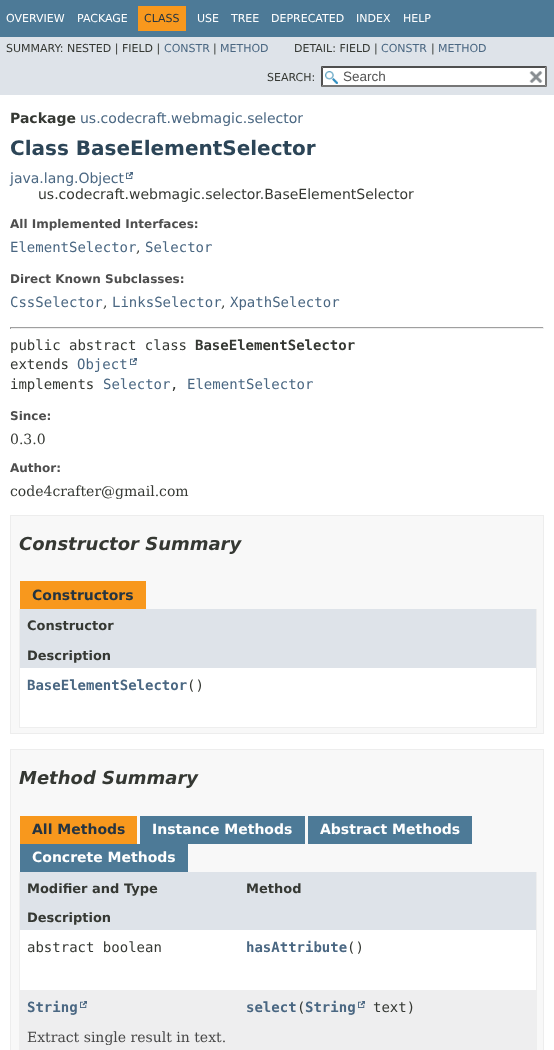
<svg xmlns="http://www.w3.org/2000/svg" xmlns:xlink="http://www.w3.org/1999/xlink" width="554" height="1050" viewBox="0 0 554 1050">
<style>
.cls-1{font:11px DejaVu Sans;fill:#ffffff}
.cls-2{font:11px DejaVu Sans;fill:#253441}
.cls-3{font:11px DejaVu Sans;fill:#353833}
.cls-4{font:11px DejaVu Sans;fill:#4a6782}
.cls-5{font:13.5px Liberation Sans;fill:#545454}
.cls-6{font:bold 14px DejaVu Sans;fill:#353833}
.cls-7{font:14px DejaVu Sans;fill:#4a6782}
.cls-8{font:bold 20px DejaVu Sans;fill:#2c4557}
.cls-9{font:14px DejaVu Sans;fill:#353833}
.cls-10{font:bold 12px DejaVu Sans;fill:#4e4e4e}
.cls-11{font:14px DejaVu Sans Mono;fill:#4a6782}
.cls-12{font:14px DejaVu Serif;fill:#353833}
.cls-13{font:14px DejaVu Sans Mono;fill:#353833}
.cls-14{font:bold 14px DejaVu Sans Mono;fill:#353833}
.cls-15{font:italic bold 18px DejaVu Sans;fill:#353833}
.cls-16{font:bold 14px DejaVu Sans;fill:#253441}
.cls-17{font:bold 13px DejaVu Sans;fill:#353833}
.cls-18{font:bold 14px DejaVu Sans Mono;fill:#4a6782}
.cls-19{font:bold 14px DejaVu Sans;fill:#ffffff}
.cls-20{font:14px DejaVu Serif;fill:#474747}
</style>
<rect width="100%" height="100%" fill="#ffffff"/>
<rect fill="#4d7a97" x="0" y="0" width="554" height="37"/>
<rect fill="#f8981d" x="138" y="6" width="48" height="25"/>
<rect fill="#dee3e9" x="0" y="37" width="554" height="58"/>
<rect fill="#ffffff" x="321" y="66" width="226" height="21"/>
<image xlink:href="image0.png" x="325" y="71" width="13" height="13"/>
<path fill="#4f4f4f" d="M321 66H547L545 68H323Z"/>
<path fill="#767676" d="M547 66V87L545 85V68Z"/>
<path fill="#767676" d="M547 87H321L323 85H545Z"/>
<path fill="#4f4f4f" d="M321 87V66L323 68V85Z"/>
<image xlink:href="image1.png" x="529" y="71" width="14" height="12"/>
<image xlink:href="image2.png" x="126" y="172" width="7" height="7"/>
<rect fill="#9f9f9f" x="10" y="327" width="534" height="1"/>
<rect fill="#eeeeee" x="543" y="327" width="1" height="2"/>
<rect fill="#eeeeee" x="10" y="328" width="534" height="1"/>
<rect fill="#9f9f9f" x="10" y="327" width="1" height="2"/>
<image xlink:href="image2.png" x="130" y="358" width="7" height="7"/>
<rect fill="#f8f8f8" stroke="#ededed" x="10.5" y="515.5" width="533" height="218"/>
<rect fill="#f8981d" x="20" y="581" width="126" height="28"/>
<rect fill="#eeeeee" x="536" y="609" width="1" height="119"/>
<rect fill="#eeeeee" x="19" y="727" width="518" height="1"/>
<rect fill="#eeeeee" x="19" y="609" width="1" height="119"/>
<rect fill="#dee3e9" x="20" y="609" width="516" height="59"/>
<rect fill="#ffffff" x="20" y="668" width="516" height="59"/>
<rect fill="#f8f8f8" stroke="#ededed" x="10.5" y="749.5" width="533" height="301"/>
<rect fill="#f8981d" x="20" y="816" width="117" height="28"/>
<rect fill="#4d7a97" x="140" y="816" width="165" height="28"/>
<rect fill="#4d7a97" x="308" y="816" width="164" height="28"/>
<rect fill="#4d7a97" x="20" y="844" width="168" height="28"/>
<rect fill="#eeeeee" x="536" y="872" width="1" height="178"/>
<rect fill="#eeeeee" x="19" y="872" width="1" height="178"/>
<rect fill="#dee3e9" x="20" y="872" width="516" height="29"/>
<rect fill="#dee3e9" x="20" y="901" width="516" height="29"/>
<rect fill="#ffffff" x="20" y="930" width="516" height="31"/>
<rect fill="#ffffff" x="20" y="961" width="516" height="29"/>
<rect fill="#eeeeef" x="20" y="990" width="516" height="30"/>
<image xlink:href="image3.png" x="80" y="1001" width="7" height="7"/>
<image xlink:href="image3.png" x="358" y="1001" width="7" height="7"/>
<rect fill="#eeeeef" x="20" y="1020" width="516" height="30"/>
<text class="cls-1" x="6" y="22">OVERVIEW</text>
<text class="cls-1" x="77" y="22">PACKAGE</text>
<text class="cls-2" x="144" y="22">CLASS</text>
<text class="cls-1" x="197" y="22">USE</text>
<text class="cls-1" x="231" y="22">TREE</text>
<text class="cls-1" x="271" y="22">DEPRECATED</text>
<text class="cls-1" x="356" y="22">INDEX</text>
<text class="cls-1" x="403" y="22">HELP</text>
<text class="cls-3" x="6" y="52">SUMMARY: NESTED | FIELD |</text>
<text class="cls-4" x="164" y="52">CONSTR</text>
<text class="cls-3" x="213" y="52">|</text>
<text class="cls-4" x="220" y="52">METHOD</text>
<text class="cls-3" x="294" y="52">DETAIL: FIELD |</text>
<text class="cls-4" x="381" y="52">CONSTR</text>
<text class="cls-3" x="431" y="52">|</text>
<text class="cls-4" x="438" y="52">METHOD</text>
<text class="cls-3" x="267" y="81">SEARCH:</text>
<text class="cls-5" x="343" y="81">Search</text>
<text class="cls-6" x="10" y="123">Package</text>
<text class="cls-7" x="80" y="123">us.codecraft.webmagic.selector</text>
<text class="cls-8" x="10" y="155">Class BaseElementSelector</text>
<text class="cls-7" x="10" y="183">java.lang.Object</text>
<text class="cls-9" x="38" y="199">us.codecraft.webmagic.selector.BaseElementSelector</text>
<text class="cls-10" x="10" y="228">All Implemented Interfaces:</text>
<text class="cls-11" x="10" y="252">ElementSelector</text>
<text class="cls-12" x="136" y="252">,</text>
<text class="cls-11" x="145" y="252">Selector</text>
<text class="cls-10" x="10" y="283">Direct Known Subclasses:</text>
<text class="cls-11" x="10" y="307">CssSelector</text>
<text class="cls-12" x="103" y="307">,</text>
<text class="cls-11" x="112" y="307">LinksSelector</text>
<text class="cls-12" x="221" y="307">,</text>
<text class="cls-11" x="230" y="307">XpathSelector</text>
<text class="cls-13" x="10" y="350">public abstract class</text>
<text class="cls-14" x="195" y="350">BaseElementSelector</text>
<text class="cls-13" x="10" y="369">extends</text>
<text class="cls-11" x="77" y="369">Object</text>
<text class="cls-13" x="10" y="389">implements</text>
<text class="cls-11" x="103" y="389">Selector</text>
<text class="cls-13" x="170" y="389">,</text>
<text class="cls-11" x="187" y="389">ElementSelector</text>
<text class="cls-10" x="10" y="420">Since:</text>
<text class="cls-12" x="10" y="444">0.3.0</text>
<text class="cls-10" x="10" y="472">Author:</text>
<text class="cls-12" x="10" y="496">code4crafter@gmail.com</text>
<text class="cls-15" x="19" y="550">Constructor Summary</text>
<text class="cls-16" x="32" y="600">Constructors</text>
<text class="cls-17" x="27" y="630">Constructor</text>
<text class="cls-17" x="27" y="660">Description</text>
<text class="cls-18" x="27" y="690">BaseElementSelector</text>
<text class="cls-13" x="187" y="690">()</text>
<text class="cls-15" x="19" y="784">Method Summary</text>
<text class="cls-16" x="32" y="834">All Methods</text>
<text class="cls-19" x="152" y="834">Instance Methods</text>
<text class="cls-19" x="320" y="834">Abstract Methods</text>
<text class="cls-19" x="32" y="862">Concrete Methods</text>
<text class="cls-17" x="27" y="893">Modifier and Type</text>
<text class="cls-17" x="246" y="893">Method</text>
<text class="cls-17" x="27" y="922">Description</text>
<text class="cls-13" x="27" y="952">abstract boolean</text>
<text class="cls-18" x="246" y="952">hasAttribute</text>
<text class="cls-13" x="347" y="952">()</text>
<text class="cls-18" x="27" y="1012">String</text>
<text class="cls-18" x="246" y="1012">select String</text>
<text class="cls-13" x="297" y="1012">(</text>
<text class="cls-13" x="373" y="1012">text)</text>
<text class="cls-20" x="27" y="1042">Extract single result in text.</text>
</svg>
